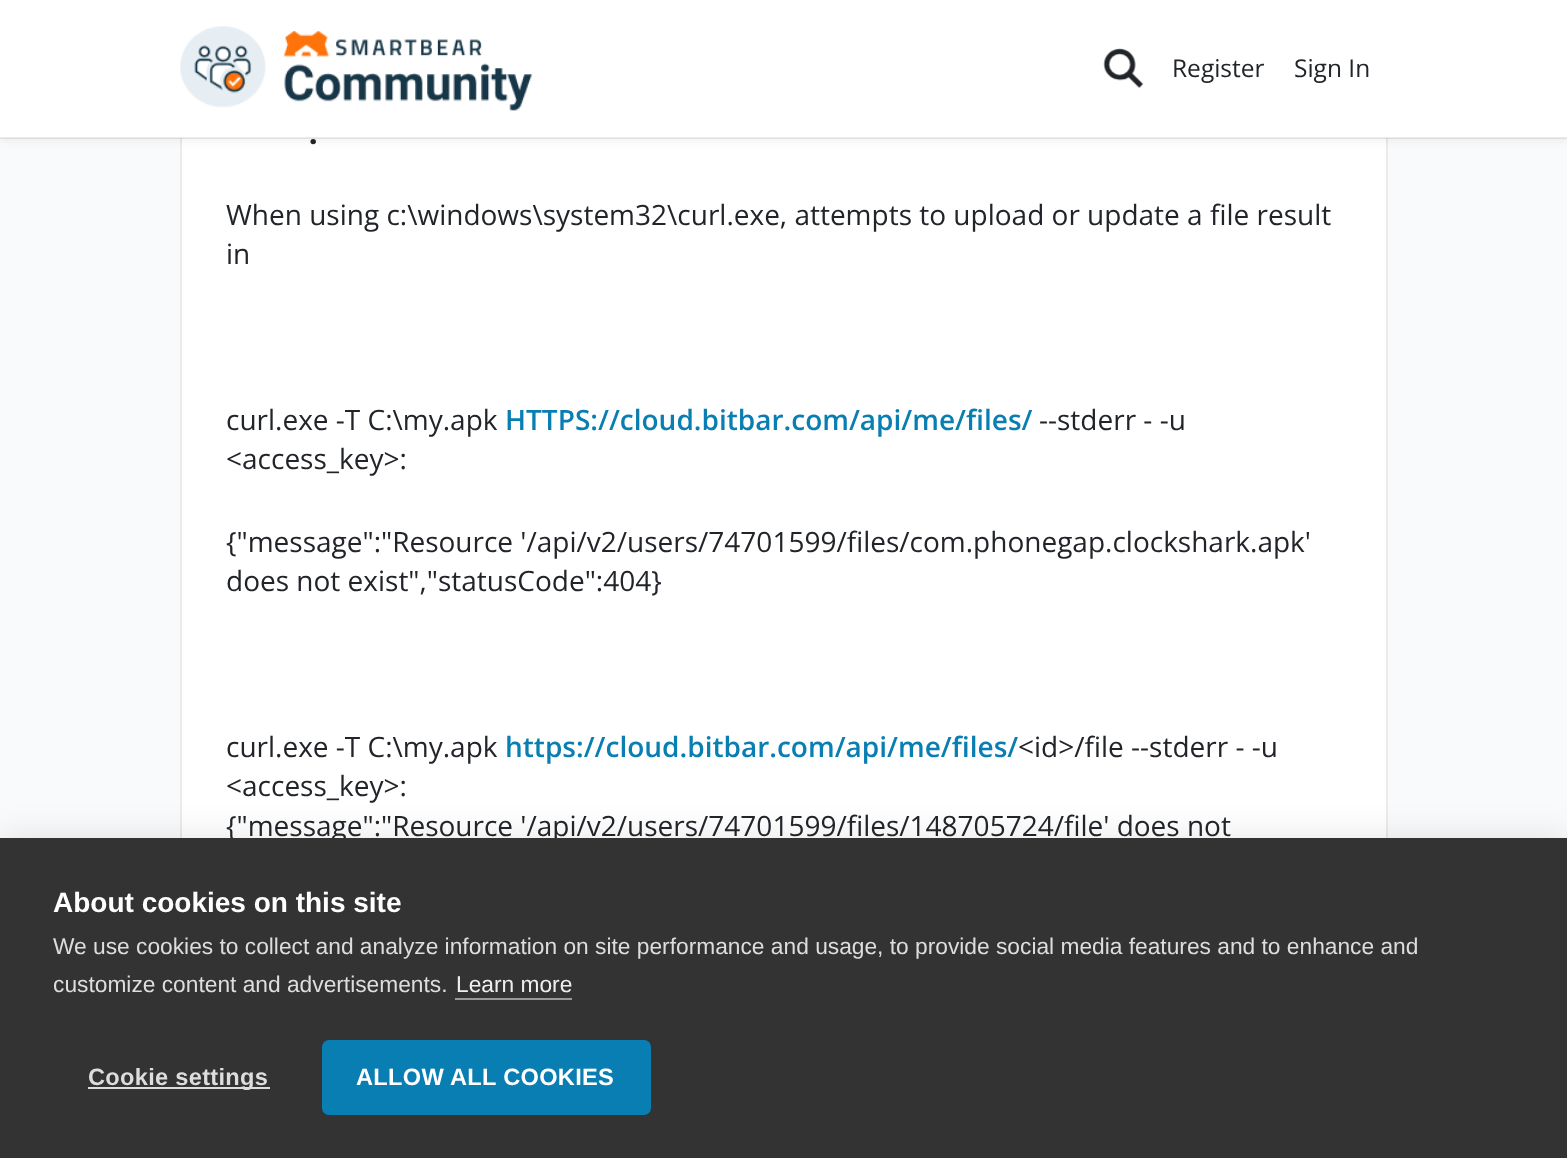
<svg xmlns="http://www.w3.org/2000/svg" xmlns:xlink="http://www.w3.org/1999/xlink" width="1567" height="1158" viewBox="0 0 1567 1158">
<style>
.cls-1{font:24.5px Open Sans;fill:#212429}
.cls-2{font:49px Roboto;fill:#212429}
.cls-3{font:28px Open Sans;fill:#212429}
.cls-4{font:600 28px Open Sans;fill:#097eb2}
.cls-5{font:bold 28px Liberation Sans;fill:#ffffff}
.cls-6{font:22.75px Liberation Sans;fill:#dddddd}
.cls-7{font:22.75px Liberation Sans;fill:#eeeeee}
.cls-8{font:bold 23.6px Liberation Sans;letter-spacing:0.3px;fill:#dddddd}
.cls-9{font:bold 23.6px Liberation Sans;letter-spacing:0.3px;fill:#ffffff}
</style>
<rect width="100%" height="100%" fill="#f8fafb"/>
<rect fill="#ffffff" x="182" y="138" width="1204" height="700"/>
<rect fill="none" stroke="#ebebeb" stroke-width="2" x="181" y="-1" width="1206" height="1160"/>
<rect fill="#333333" fill-opacity="0.06" filter="blur(3.5px)" x="0" y="4" width="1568" height="138"/>
<rect fill="#ffffff" x="0" y="0" width="1567" height="138"/>
<rect fill="#000000" fill-opacity="0.08" x="0" y="137" width="1567" height="2"/>
<image xlink:href="image0.png" x="180" y="26" width="353" height="85"/>
<image xlink:href="image1.png" x="1103" y="48" width="41" height="41"/>
<rect fill="#000000" fill-opacity="0.1" filter="blur(17.5px)" x="0" y="838" width="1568" height="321"/>
<text class="cls-1" x="1172" y="77">Register</text>
<text class="cls-1" x="1294" y="77">Sign In</text>
<text class="cls-2" x="307" y="144">.</text>
<text class="cls-3"><tspan x="226" y="225">When using c:\windows\system32\curl.exe, attempts to upload or update a file result</tspan><tspan x="226" y="264">in</tspan></text>
<text class="cls-3" x="226" y="430">curl.exe -T C:\my.apk</text>
<text class="cls-4" x="505" y="430">HTTPS://cloud.bitbar.com/api/me/files/</text>
<text class="cls-3" x="1039" y="430">--stderr - -u</text>
<text class="cls-3" x="226" y="469">&lt;access_key&gt;:</text>
<text class="cls-3"><tspan x="226" y="552">{"message":"Resource '/api/v2/users/74701599/files/com.phonegap.clockshark.apk'</tspan><tspan x="226" y="591">does not exist","statusCode":404}</tspan></text>
<text class="cls-3" x="226" y="757">curl.exe -T C:\my.apk</text>
<text class="cls-4" x="505" y="757">https://cloud.bitbar.com/api/me/files/</text>
<text class="cls-3" x="1018" y="757">&lt;id&gt;/file --stderr - -u</text>
<text class="cls-3"><tspan x="226" y="796">&lt;access_key&gt;:</tspan><tspan x="226" y="836">{"message":"Resource '/api/v2/users/74701599/files/148705724/file' does not</tspan></text>
<rect fill="#333333" x="0" y="838" width="1567" height="320"/>
<text class="cls-5" x="53" y="912">About cookies on this site</text>
<text class="cls-6"><tspan x="53" y="954">We use cookies to collect and analyze information on site performance and usage, to provide social media features and to enhance and</tspan><tspan x="53" y="992">customize content and advertisements.</tspan></text>
<text class="cls-7" x="456" y="992">Learn more</text>
<rect fill="#999999" x="455" y="998" width="117" height="2"/>
<rect fill="#dddddd" x="88" y="1087" width="182" height="2"/>
<text class="cls-8" x="88" y="1085">Cookie settings</text>
<rect fill="#097eb2" x="322" y="1040" width="329" height="75" rx="7"/>
<text class="cls-9" x="356" y="1085">ALLOW ALL COOKIES</text>
</svg>
